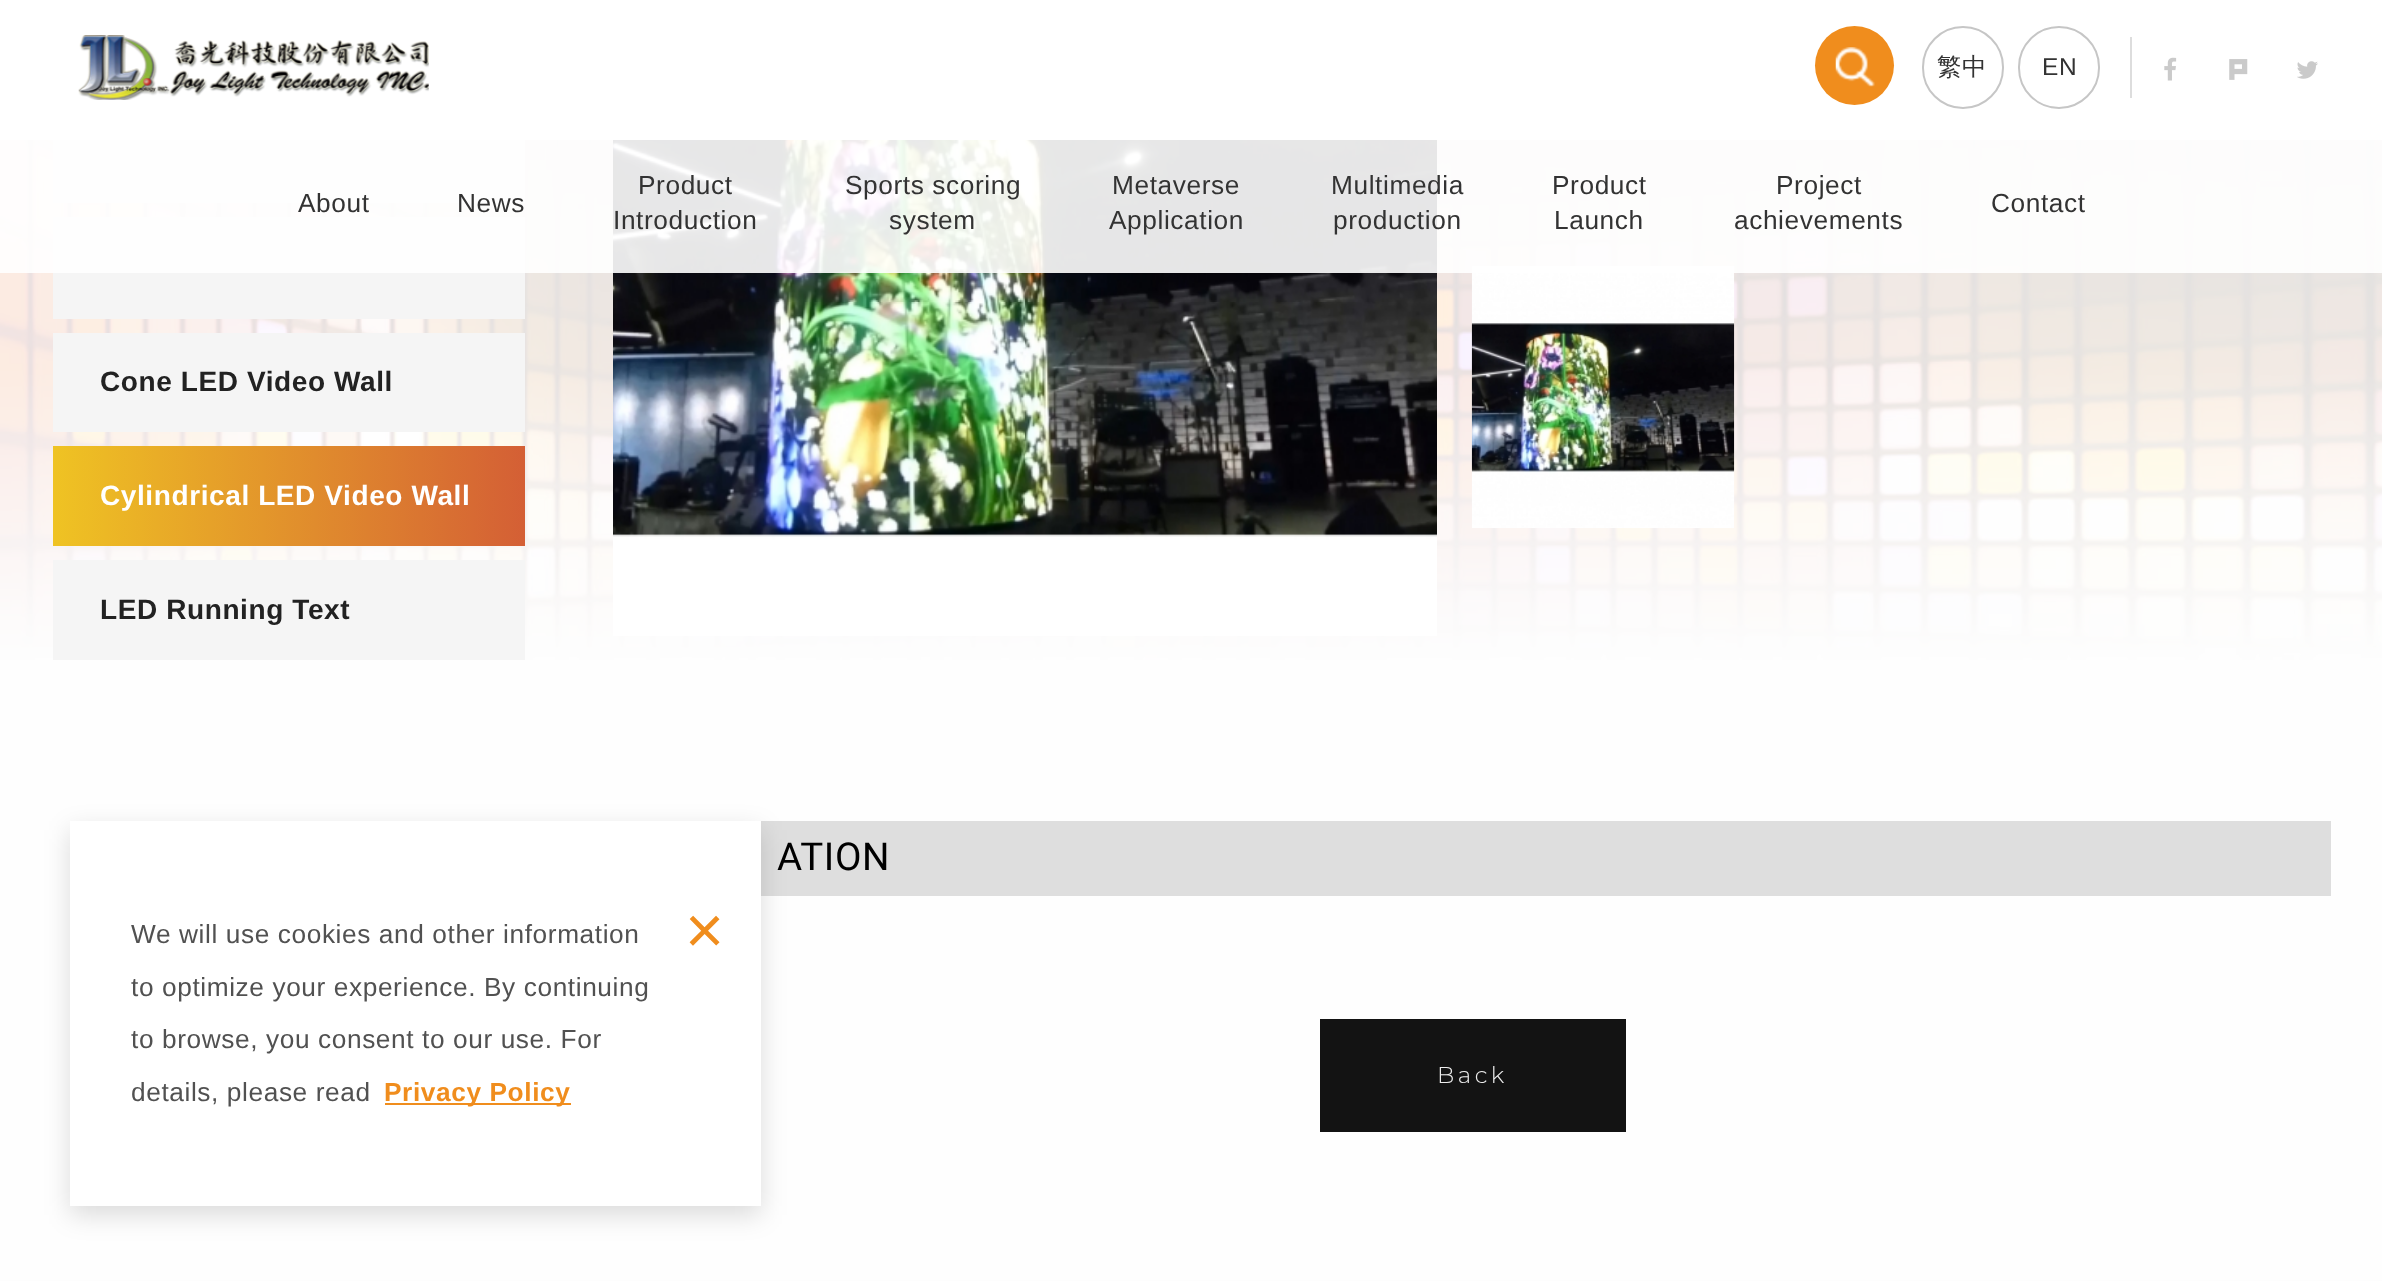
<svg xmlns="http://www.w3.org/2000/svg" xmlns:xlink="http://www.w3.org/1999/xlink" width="2382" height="1281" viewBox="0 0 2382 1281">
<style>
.cls-1{font:500 24.5px WenQuanYi Zen Hei;letter-spacing:0.6px;fill:#333333}
.cls-2{font:24.5px Liberation Sans;letter-spacing:0.6px;fill:#333333}
.cls-3{font:26.25px Liberation Sans;letter-spacing:0.6px;fill:#333333}
.cls-4{font:26.25px Liberation Sans;letter-spacing:0.6px;fill:#515151}
.cls-5{font:bold 26.25px Liberation Sans;letter-spacing:0.6px;fill:#f08d1d}
.cls-6{font:67px Liberation Sans;fill:#f08d1d}
.cls-7{font:bold 28px Liberation Sans;letter-spacing:0.6px;fill:#222222}
.cls-8{font:bold 28px Liberation Sans;letter-spacing:0.6px;fill:#ffffff}
.cls-9{font:38.5px Roboto;letter-spacing:0.6px;fill:#000000}
.cls-10{font:300 23px Montserrat;letter-spacing:3.5px;fill:#ededed}
</style>
<defs>
<linearGradient id="g1" gradientUnits="userSpaceOnUse" x1="53" y1="496" x2="525" y2="496"><stop offset="0" stop-color="#efc323"/><stop offset="1" stop-color="#d45f35"/></linearGradient>
</defs>
<rect width="100%" height="100%" fill="#ffffff"/>
<image xlink:href="image0.png" x="0" y="140" width="2382" height="1141"/>
<image xlink:href="image1.png" x="78" y="35" width="351" height="65"/>
<circle fill="#f08d1d" cx="1854.5" cy="65.5" r="39.5"/>
<image xlink:href="image2.png" x="1835" y="47" width="40" height="40"/>
<rect fill="none" stroke="#c6c6c6" stroke-width="2" x="1923" y="27" width="80" height="81" rx="40"/>
<rect fill="none" stroke="#c6c6c6" stroke-width="2" x="2019" y="27" width="80" height="81" rx="40"/>
<rect fill="#dddddd" x="2130" y="37" width="2" height="61"/>
<image xlink:href="image3.png" x="2164" y="57" width="13" height="24"/>
<image xlink:href="image4.png" x="2229" y="59" width="19" height="21"/>
<image xlink:href="image5.png" x="2297" y="61" width="21" height="18"/>
<rect fill="#f5f5f5" x="53" y="140" width="472" height="63"/>
<rect fill="#f5f5f5" x="53" y="217" width="472" height="102"/>
<image xlink:href="image6.png" x="613" y="140" width="824" height="496"/>
<image xlink:href="image7.png" x="1471" y="266" width="264" height="262"/>
<rect fill="#ffffff" fill-opacity="0.9" x="0" y="140" width="2382" height="133"/>
<rect fill="#dedede" x="761" y="821" width="1570" height="75"/>
<rect fill="#000000" fill-opacity="0.14" filter="blur(13px)" x="70" y="830" width="691" height="385"/>
<rect fill="#ffffff" x="70" y="821" width="691" height="385"/>
<rect fill="#f08d1d" x="385" y="1103" width="186" height="2"/>
<rect fill="#f5f5f5" x="53" y="333" width="472" height="99"/>
<rect fill="url(#g1)" x="53" y="446" width="472" height="100"/>
<rect fill="#f5f5f5" x="53" y="560" width="472" height="100"/>
<rect fill="#131313" x="1320" y="1019" width="306" height="113"/>
<text class="cls-1" x="1937" y="75">繁中</text>
<text class="cls-2" x="2042" y="75">EN</text>
<text class="cls-3" x="298" y="212">About</text>
<text class="cls-3" x="457" y="212">News</text>
<text class="cls-3" x="638" y="194">Product</text>
<text class="cls-3" x="613" y="229">Introduction</text>
<text class="cls-3" x="845" y="194">Sports scoring</text>
<text class="cls-3" x="889" y="229">system</text>
<text class="cls-3" x="1112" y="194">Metaverse</text>
<text class="cls-3" x="1109" y="229">Application</text>
<text class="cls-3" x="1331" y="194">Multimedia</text>
<text class="cls-3" x="1333" y="229">production</text>
<text class="cls-3" x="1552" y="194">Product</text>
<text class="cls-3" x="1554" y="229">Launch</text>
<text class="cls-3" x="1776" y="194">Project</text>
<text class="cls-3" x="1734" y="229">achievements</text>
<text class="cls-3" x="1991" y="212">Contact</text>
<text class="cls-4" x="131" y="943">We will use cookies and other information</text>
<text class="cls-4"><tspan x="131" y="996">to optimize your experience. By continuing</tspan><tspan x="131" y="1048">to browse, you consent to our use. For</tspan></text>
<text class="cls-4" x="131" y="1101">details, please read</text>
<text class="cls-5" x="384" y="1101">Privacy Policy</text>
<text class="cls-6" x="685" y="953">×</text>
<text class="cls-7" x="100" y="391">Cone LED Video Wall</text>
<text class="cls-8" x="100" y="505">Cylindrical LED Video Wall</text>
<text class="cls-7" x="100" y="619">LED Running Text</text>
<text class="cls-9" x="777" y="870">ATION</text>
<text class="cls-10" x="1437" y="1083">Back</text>
</svg>
